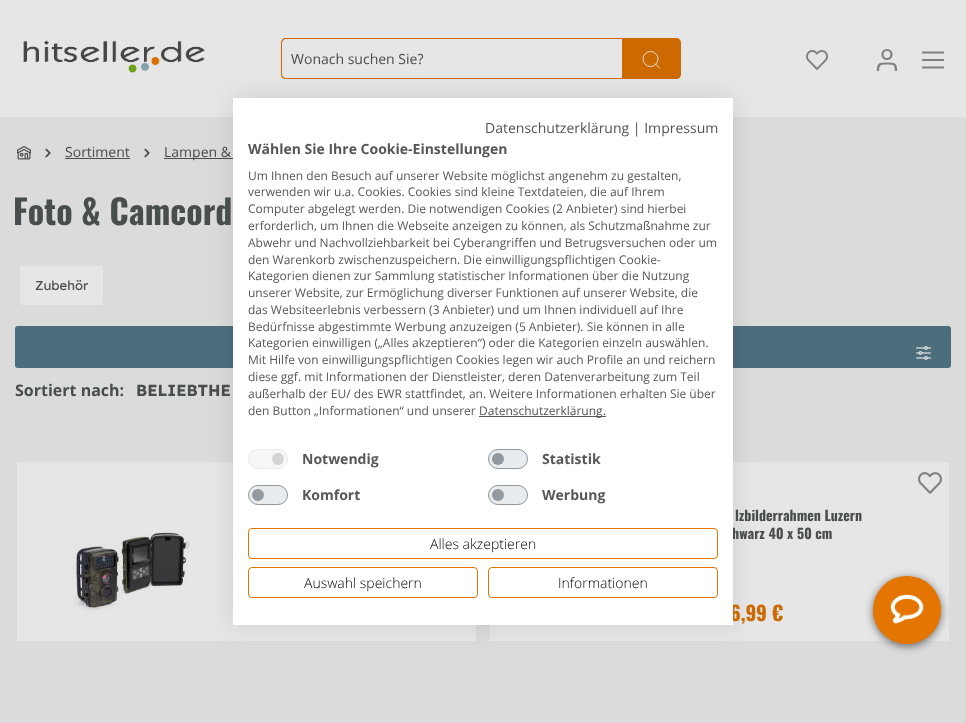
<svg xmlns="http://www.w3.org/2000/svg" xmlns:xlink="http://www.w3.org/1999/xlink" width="966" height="723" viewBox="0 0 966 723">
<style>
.cls-1{font:14px Open Sans;fill:#484d4d}
.cls-2{font:bold 34px Oswald;fill:#484d4d}
.cls-3{font:13px Lexend;fill:#484d4d}
.cls-4{font:bold 16px Open Sans;fill:#484d4d}
.cls-5{font:bold 16px Lexend;fill:#484d4d}
.cls-6{font:bold 14px Oswald;fill:#484d4d}
.cls-7{font:bold 20px Oswald;fill:#cc6900}
.cls-8{font:300 14px Open Sans;fill:#000000}
.cls-9{font:bold 14px Open Sans;fill:#575757}
.cls-10{font:12px Open Sans;fill:#575757}
.cls-11{font:12px Open Sans;fill:#505555}
.cls-12{font:14px Open Sans;fill:#505555}
</style>
<defs>
<clipPath id="clip1"><rect x="876" y="49" width="22" height="22"/></clipPath>
<clipPath id="clip2"><rect x="922" y="49" width="22" height="22"/></clipPath>
</defs>
<rect width="100%" height="100%" fill="#dbdbdb"/>
<rect fill="#e6e6e6" x="0" y="0" width="966" height="117"/>
<image xlink:href="image0.png" x="23" y="40" width="182" height="33"/>
<path fill="#cc6900" fill-rule="evenodd" d="M286 38H622V79H286C283 79 281 77 281 74V43C281 40 283 38 286 38ZM286 39H622V78H286C284 78 282 76 282 74V43C282 41 284 39 286 39Z"/>
<path fill="#cc6900" d="M622 38H676C679 38 681 40 681 43V74C681 77 679 79 676 79H622Z"/>
<circle fill="none" stroke="#e6e6e6" stroke-width="0.9" cx="650.5" cy="59" r="7.5"/>
<path fill="none" stroke="#e6e6e6" stroke-width="0.9" stroke-linecap="square" stroke-linejoin="round" d="M659.5 68L655.5 64"/>
<image xlink:href="image1.png" x="806" y="50" width="22" height="20"/>
<g clip-path="url(#clip1)">
<path fill="none" stroke="#7f8183" stroke-width="2.2" stroke-linecap="square" stroke-linejoin="round" d="M896 70C896 63 893 63.5 887 63.5C881 63.5 878 63 878 70"/>
</g>
<circle fill="none" stroke="#7f8183" stroke-width="2.2" cx="887" cy="54.5" r="4.5"/>
<rect fill="#7f8183" x="922" y="59" width="22" height="2"/>
<g clip-path="url(#clip2)">
<path fill="none" stroke="#7f8183" stroke-width="2" stroke-linecap="square" stroke-linejoin="round" d="M922 52.5H944M922 67.5H944"/>
</g>
<rect fill="#484d4d" x="164" y="158" width="69" height="1"/>
<rect fill="#4c6e7c" x="15" y="326" width="936" height="42" rx="3"/>
<rect fill="#e6e6e6" x="17" y="462" width="459" height="179"/>
<rect fill="#e6e6e6" x="490" y="462" width="459" height="179"/>
<rect fill="#000000" fill-opacity="0.1" filter="blur(12px)" x="233" y="98" width="500" height="527"/>
<image xlink:href="image2.png" x="17" y="146" width="14" height="14"/>
<image xlink:href="image3.png" x="45" y="148" width="6" height="10"/>
<rect fill="#484d4d" x="65" y="158" width="65" height="1"/>
<image xlink:href="image3.png" x="144" y="148" width="6" height="10"/>
<rect fill="#e6e6e6" x="20" y="266" width="83" height="39" rx="3"/>
<image xlink:href="image4.png" x="916" y="346" width="15" height="14"/>
<image xlink:href="image5.png" x="73" y="531" width="116" height="80"/>
<image xlink:href="image6.png" x="918" y="472" width="24" height="22"/>
<rect fill="#000000" fill-opacity="0.55" filter="blur(4px)" x="873" y="578" width="68" height="68" rx="34"/>
<circle fill="#e37500" cx="907" cy="610" r="34"/>
<image xlink:href="image7.png" x="873" y="576" width="68" height="68"/>
<text class="cls-1" x="291" y="64">Wonach suchen Sie?</text>
<text class="cls-1" x="65" y="157">Sortiment</text>
<text class="cls-1" x="164" y="157">Lampen &amp;</text>
<text class="cls-2" x="13" y="225">Foto &amp; Camcord</text>
<text class="cls-3" x="35" y="290">Zubehör</text>
<text class="cls-4" x="15" y="396">Sortiert nach:</text>
<text class="cls-5" x="136" y="396">BELIEBTHE</text>
<text class="cls-6" x="735" y="521">lzbilderrahmen Luzern</text>
<text class="cls-6" x="732" y="539">hwarz 40 x 50 cm</text>
<text class="cls-7" x="730" y="621">6,99 €</text>
<rect fill="#ffffff" x="233" y="98" width="500" height="527"/>
<rect fill="none" stroke="#e37500" x="488.5" y="567.5" width="229" height="30" rx="3.5"/>
<text class="cls-8" x="558" y="588">Informationen</text>
<rect fill="none" stroke="#e37500" x="248.5" y="567.5" width="229" height="30" rx="3.5"/>
<text class="cls-8" x="304" y="588">Auswahl speichern</text>
<rect fill="none" stroke="#e37500" x="248.5" y="528.5" width="469" height="30" rx="3.5"/>
<text class="cls-8" x="430" y="549">Alles akzeptieren</text>
<rect fill="#e9ecef" x="488" y="485" width="40" height="20" rx="10"/>
<circle fill="#92999f" cx="498" cy="495" r="6"/>
<rect fill="none" stroke="#6c757d" stroke-opacity="0.7" x="488.5" y="485.5" width="39" height="19" rx="9.5"/>
<text class="cls-9" x="542" y="500">Werbung</text>
<rect fill="#e9ecef" x="248" y="485" width="40" height="20" rx="10"/>
<circle fill="#92999f" cx="258" cy="495" r="6"/>
<rect fill="none" stroke="#6c757d" stroke-opacity="0.7" x="248.5" y="485.5" width="39" height="19" rx="9.5"/>
<text class="cls-9" x="302" y="500">Komfort</text>
<rect fill="#e9ecef" x="488" y="449" width="40" height="20" rx="10"/>
<circle fill="#92999f" cx="498" cy="459" r="6"/>
<rect fill="none" stroke="#6c757d" stroke-opacity="0.7" x="488.5" y="449.5" width="39" height="19" rx="9.5"/>
<text class="cls-9" x="542" y="464">Statistik</text>
<rect fill="#f6f7f7" x="248" y="449" width="40" height="20" rx="10"/>
<circle fill="#d3d5d5" cx="278" cy="459" r="6"/>
<rect fill="none" stroke="#e9eaea" x="248.5" y="449.5" width="39" height="19" rx="9.5"/>
<text class="cls-9" x="302" y="464">Notwendig</text>
<text class="cls-10" x="603" y="415">.</text>
<rect fill="#575757" x="479" y="416" width="127" height="1"/>
<text class="cls-11" x="479" y="415">Datenschutzerklärung</text>
<text class="cls-10" x="248" y="415">den Button „Informationen“ und unserer</text>
<text class="cls-10" x="248" y="398">außerhalb der EU/ des EWR stattfindet, an. Weitere Informationen erhalten Sie über</text>
<text class="cls-10" x="248" y="381">diese ggf. mit Informationen der Dienstleister, deren Datenverarbeitung zum Teil</text>
<text class="cls-10" x="248" y="364">Mit Hilfe von einwilligungspflichtigen Cookies legen wir auch Profile an und reichern</text>
<text class="cls-10" x="248" y="347">Kategorien einwilligen („Alles akzeptieren“) oder die Kategorien einzeln auswählen.</text>
<text class="cls-10" x="248" y="331">Bedürfnisse abgestimmte Werbung anzuzeigen (5 Anbieter). Sie können in alle</text>
<text class="cls-10" x="248" y="314">das Websiteerlebnis verbessern (3 Anbieter) und um Ihnen individuell auf Ihre</text>
<text class="cls-10" x="248" y="297">unserer Website, zur Ermöglichung diverser Funktionen auf unserer Website, die</text>
<text class="cls-10" x="248" y="280">Kategorien dienen zur Sammlung statistischer Informationen über die Nutzung</text>
<text class="cls-10" x="248" y="264">den Warenkorb zwischenzuspeichern. Die einwilligungspflichtigen Cookie-</text>
<text class="cls-10" x="248" y="247">Abwehr und Nachvollziehbarkeit bei Cyberangriffen und Betrugsversuchen oder um</text>
<text class="cls-10" x="248" y="230">erforderlich, um Ihnen die Webseite anzeigen zu können, als Schutzmaßnahme zur</text>
<text class="cls-10" x="248" y="213">Computer abgelegt werden. Die notwendigen Cookies (2 Anbieter) sind hierbei</text>
<text class="cls-10" x="248" y="196">verwenden wir u.a. Cookies. Cookies sind kleine Textdateien, die auf Ihrem</text>
<text class="cls-10" x="248" y="180">Um Ihnen den Besuch auf unserer Website möglichst angenehm zu gestalten,</text>
<text class="cls-9" x="248" y="154">Wählen Sie Ihre Cookie-Einstellungen</text>
<text class="cls-12" x="485" y="133">Datenschutzerklärung | Impressum</text>
</svg>
